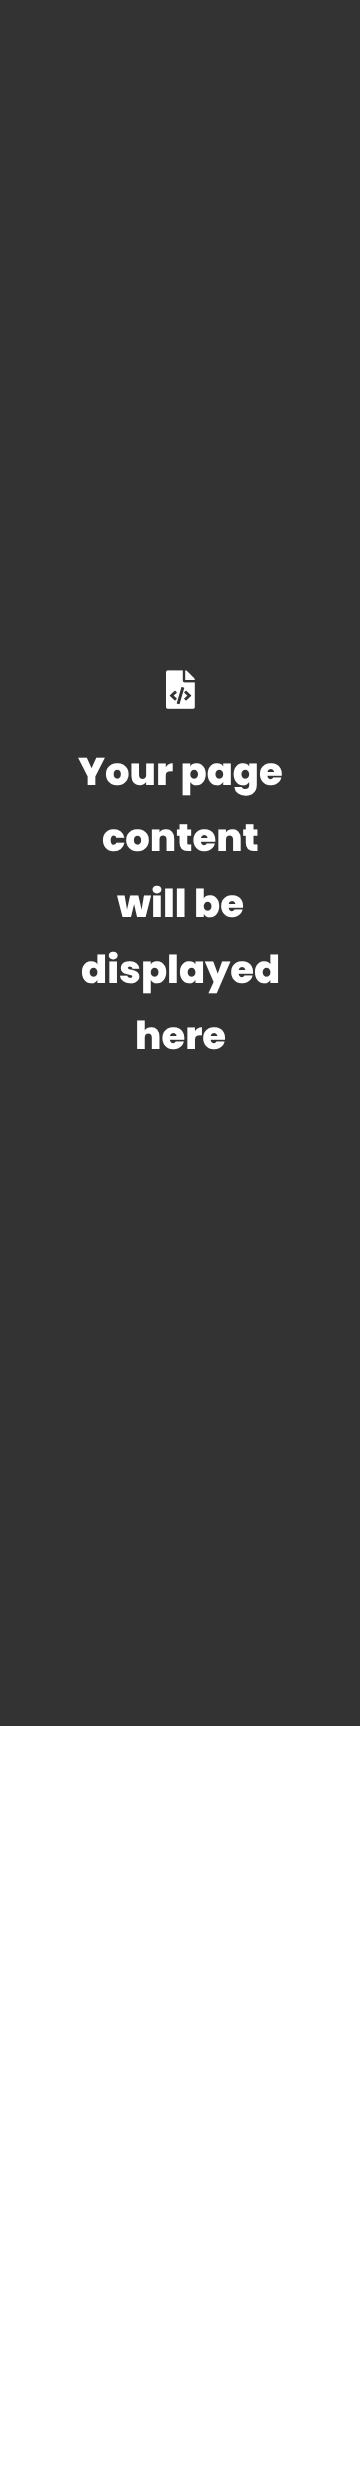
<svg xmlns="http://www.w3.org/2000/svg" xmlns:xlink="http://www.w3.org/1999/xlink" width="360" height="2466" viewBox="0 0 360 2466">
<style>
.cls-1{font:800 38.5px Poppins;fill:#ffffff}
</style>
<rect width="100%" height="100%" fill="#ffffff"/>
<rect fill="#333333" x="0" y="0" width="360" height="1726"/>
<image xlink:href="image0.png" x="166" y="670" width="29" height="39"/>
<text class="cls-1" x="78" y="785">Your page</text>
<text class="cls-1" x="102" y="851">content</text>
<text class="cls-1" x="117" y="917">will be</text>
<text class="cls-1" x="81" y="983">displayed</text>
<text class="cls-1" x="135" y="1049">here</text>
</svg>
